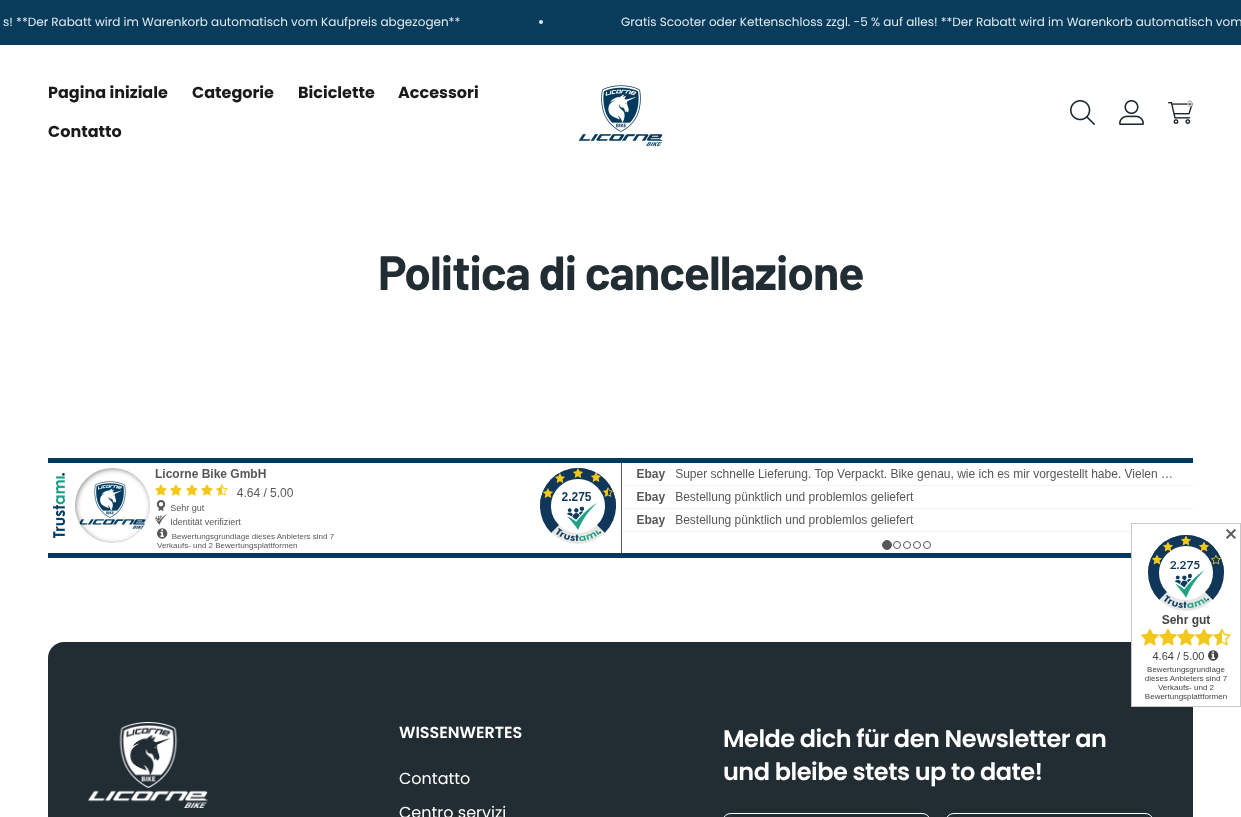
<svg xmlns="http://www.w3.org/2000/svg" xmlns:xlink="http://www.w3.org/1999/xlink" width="1241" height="817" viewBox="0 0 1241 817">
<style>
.cls-1{font:12px Poppins;fill:#e1ebf3}
.cls-2{font:bold 16px Poppins;fill:#1a1a1a}
.cls-3{font:bold 9px Poppins;fill:#bfc2c4}
.cls-4{font:bold 48px Barlow;letter-spacing:-0.95px;fill:#212c33}
.cls-5{font:600 16px Poppins;fill:#ffffff}
.cls-6{font:16px Poppins;fill:#ffffff}
.cls-7{font:600 24px Poppins;letter-spacing:-0.5px;fill:#ffffff}
.cls-8{font:bold 16px DejaVu Sans;fill:#595959}
</style>
<rect width="100%" height="100%" fill="#ffffff"/>
<rect fill="#093c5b" x="0" y="0" width="1241" height="45"/>
<circle fill="#e1ebf3" cx="541" cy="22" r="2"/>
<image xlink:href="image0.png" x="578" y="85" width="85" height="62"/>
<image xlink:href="image1.png" x="1070" y="100" width="25" height="25"/>
<image xlink:href="image2.png" x="1119" y="100" width="25" height="25"/>
<image xlink:href="image3.png" x="1168" y="102" width="25" height="22"/>
<image xlink:href="image4.png" x="48" y="458" width="1145" height="100"/>
<rect fill="#212c33" x="48" y="642" width="1145" height="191" rx="16"/>
<image xlink:href="image5.png" x="88" y="722" width="120" height="86"/>
<rect fill="none" stroke="#ffffff" x="723.5" y="813.5" width="206" height="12" rx="7.5"/>
<rect fill="none" stroke="#ffffff" x="946.5" y="813.5" width="206" height="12" rx="7.5"/>
<image xlink:href="image6.png" x="1131" y="523" width="110" height="184"/>
<text class="cls-1" x="3" y="26">s! **Der Rabatt wird im Warenkorb automatisch vom Kaufpreis abgezogen**</text>
<text class="cls-1" x="621" y="26">Gratis Scooter oder Kettenschloss zzgl. -5 % auf alles! **Der Rabatt wird im Warenkorb automatisch vom</text>
<text class="cls-2" x="48" y="98">Pagina iniziale</text>
<text class="cls-2" x="192" y="98">Categorie</text>
<text class="cls-2" x="298" y="98">Biciclette</text>
<text class="cls-2" x="398" y="98">Accessori</text>
<text class="cls-2" x="48" y="137">Contatto</text>
<text class="cls-3" x="1187" y="107">0</text>
<text class="cls-4" x="378" y="290">Politica di cancellazione</text>
<text class="cls-5" x="399" y="738">WISSENWERTES</text>
<text class="cls-6" x="399" y="784">Contatto</text>
<text class="cls-6" x="399" y="818">Centro servizi</text>
<text class="cls-7"><tspan x="723" y="747">Melde dich für den Newsletter an</tspan><tspan x="723" y="780">und bleibe stets up to date!</tspan></text>
<text class="cls-8" x="1224" y="540">✕</text>
</svg>
